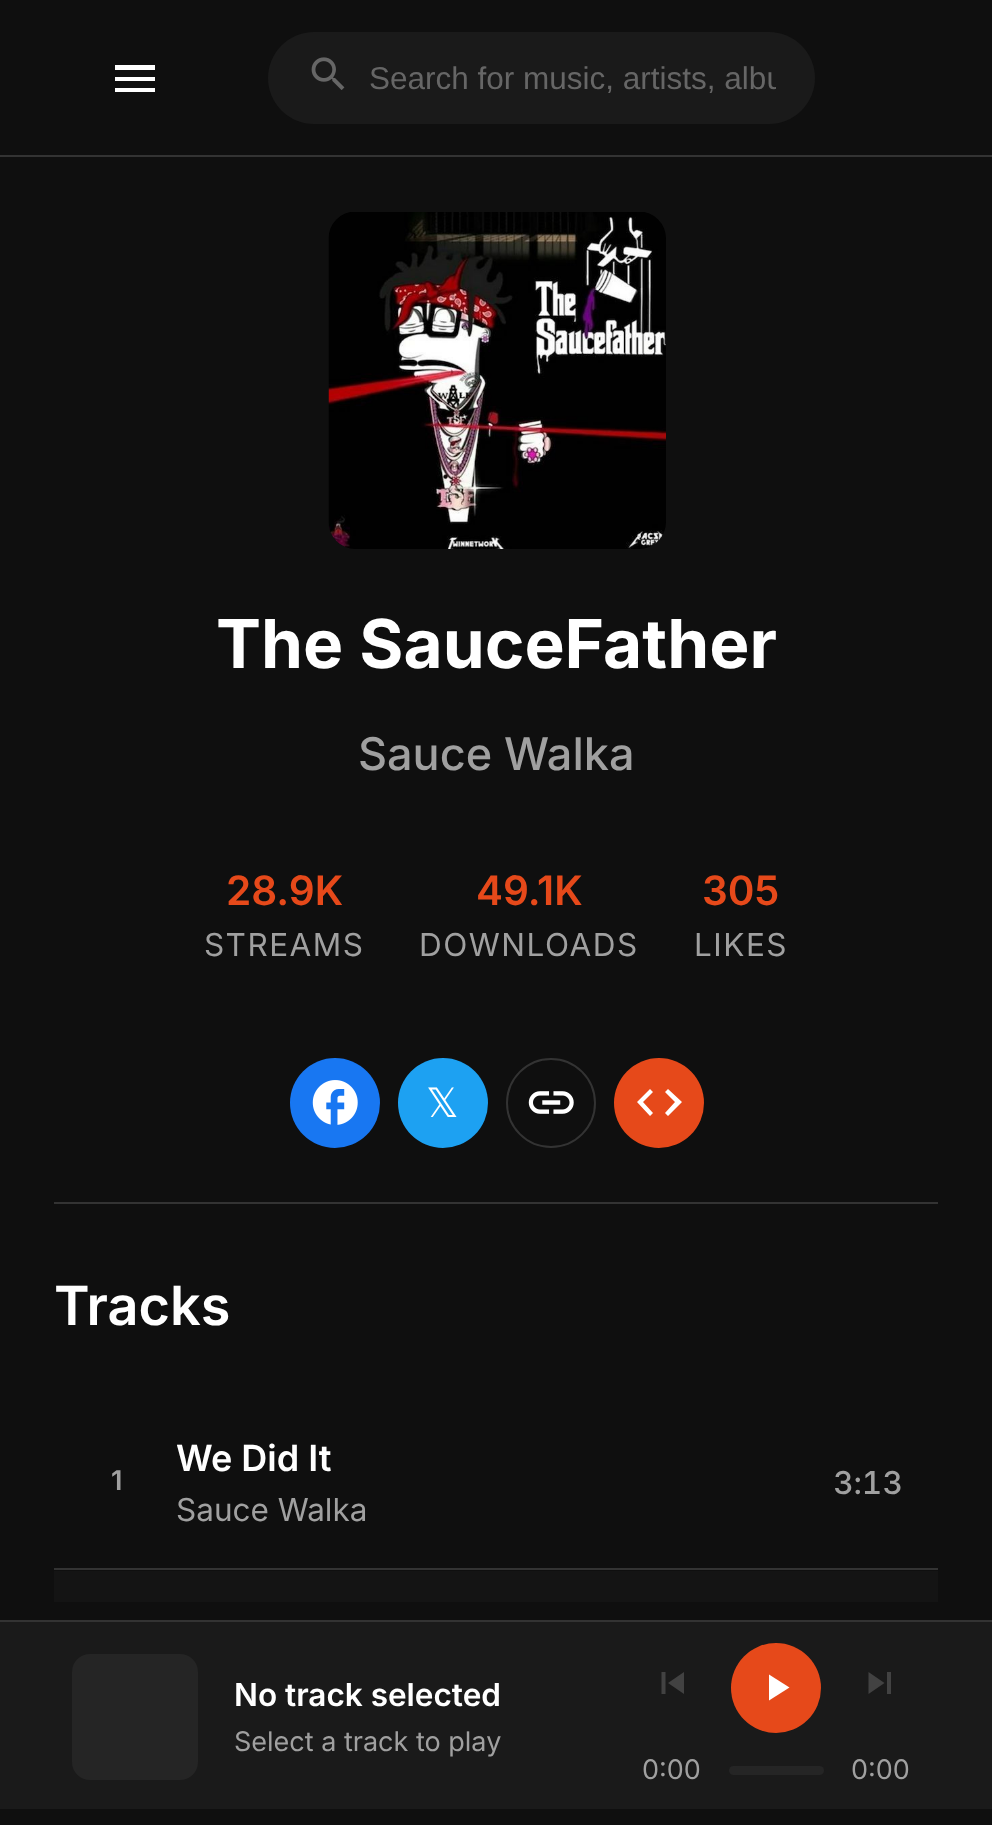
<svg xmlns="http://www.w3.org/2000/svg" xmlns:xlink="http://www.w3.org/1999/xlink" width="992" height="1825" viewBox="0 0 992 1825">
<style>
.cls-1{font:31.5px Liberation Sans;fill:#666666}
.cls-2{font:bold 67.5px Inter;fill:#ffffff}
.cls-3{font:500 45px Inter;fill:#a0a0a0}
.cls-4{font:600 40.5px Inter;fill:#e6491a}
.cls-5{font:31.5px Inter;letter-spacing:1.5px;fill:#a0a0a0}
.cls-6{font:40.5px DejaVu Sans;fill:#ffffff}
.cls-7{font:600 54px Inter;fill:#ffffff}
.cls-8{font:600 27px Inter;fill:#a0a0a0}
.cls-9{font:600 36px Inter;fill:#ffffff}
.cls-10{font:31.5px Inter;fill:#a0a0a0}
.cls-11{font:500 31.5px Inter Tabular;fill:#a0a0a0}
.cls-12{font:600 31.5px Inter;fill:#ffffff}
.cls-13{font:27px Inter;fill:#a0a0a0}
</style>
<defs>
<clipPath id="clip1"><rect x="369" y="61" width="407" height="36"/></clipPath>
</defs>
<rect width="100%" height="100%" fill="#0f0f0f"/>
<rect fill="#333333" x="0" y="155" width="992" height="2"/>
<path fill="#ffffff" d="M115 65H155V70H115ZM115 81V77H155V81ZM115 92V88H155V92Z"/>
<rect fill="#1a1a1a" x="268" y="32" width="547" height="92" rx="46"/>
<image xlink:href="image0.png" x="311" y="57" width="34" height="33"/>
<rect fill="#333333" x="54" y="1202" width="884" height="2"/>
<image xlink:href="image1.png" x="328" y="212" width="338" height="337"/>
<circle fill="#1877f2" cx="335" cy="1103" r="45"/>
<image xlink:href="image2.png" x="312" y="1080" width="46" height="45"/>
<circle fill="#1da1f2" cx="443" cy="1103" r="45"/>
<circle fill="none" stroke="#333333" stroke-width="2" cx="551" cy="1103" r="44"/>
<image xlink:href="image3.png" x="528" y="1091" width="46" height="23"/>
<circle fill="#e6491a" cx="659" cy="1103" r="45"/>
<path fill="#ffffff" d="M665 1113L675 1102L665 1092L668 1089L682 1102L668 1116ZM653 1113L650 1116L637 1102L650 1089L653 1092L643 1102Z"/>
<rect fill="#333333" x="54" y="1568" width="884" height="2"/>
<rect fill="#141414" x="54" y="1571" width="884" height="31"/>
<rect fill="#1a1a1a" x="0" y="1622" width="992" height="187"/>
<rect fill="#333333" x="0" y="1620" width="992" height="2"/>
<rect fill="#252525" x="72" y="1654" width="126" height="126" rx="18"/>
<path fill="#424242" d="M668 1683L684 1672V1694ZM661.5 1672H665.5V1694H661.5Z"/>
<circle fill="#e6491a" cx="776" cy="1688" r="45"/>
<path fill="#ffffff" d="M769 1674.5L789.5 1687.5L769 1700.5Z"/>
<path fill="#424242" d="M887 1672H891V1694H887ZM868.5 1694V1672L884.5 1683Z"/>
<rect fill="#252525" x="729" y="1766" width="95" height="9" rx="4.5"/>
<g clip-path="url(#clip1)">
<text class="cls-1" x="369" y="89">Search for music, artists, albu</text>
</g>
<text class="cls-2" x="216" y="668">The SauceFather</text>
<text class="cls-3" x="358" y="770">Sauce Walka</text>
<text class="cls-4" x="226" y="905">28.9K</text>
<text class="cls-5" x="204" y="956">STREAMS</text>
<text class="cls-4" x="476" y="905">49.1K</text>
<text class="cls-5" x="419" y="956">DOWNLOADS</text>
<text class="cls-4" x="702" y="905">305</text>
<text class="cls-5" x="694" y="956">LIKES</text>
<text class="cls-6" x="426" y="1117">𝕏</text>
<text class="cls-7" x="54" y="1325">Tracks</text>
<text class="cls-8" x="111" y="1490">1</text>
<text class="cls-9" x="176" y="1471">We Did It</text>
<text class="cls-10" x="176" y="1521">Sauce Walka</text>
<text class="cls-11" x="833" y="1494">3:13</text>
<text class="cls-12" x="234" y="1706">No track selected</text>
<text class="cls-13" x="234" y="1751">Select a track to play</text>
<text class="cls-13" x="642" y="1779">0:00</text>
<text class="cls-13" x="851" y="1779">0:00</text>
</svg>
